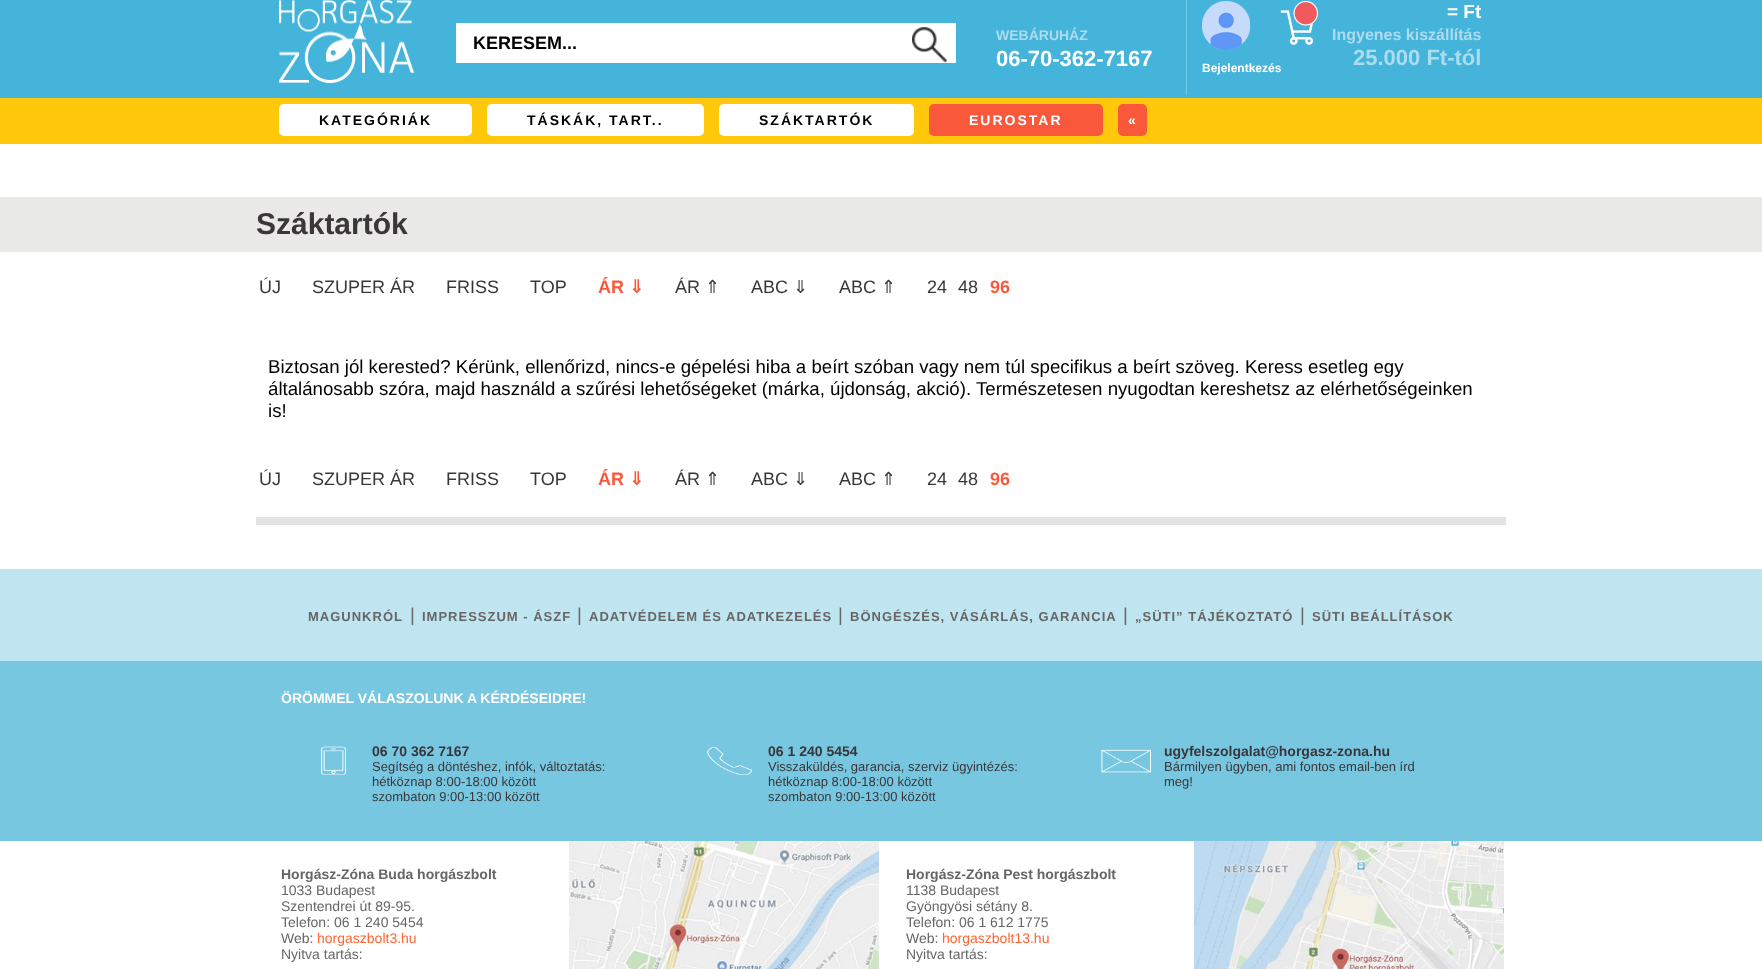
<svg xmlns="http://www.w3.org/2000/svg" xmlns:xlink="http://www.w3.org/1999/xlink" width="1762" height="969" viewBox="0 0 1762 969">
<style>
.cls-1{font:bold 18px Liberation Sans;fill:#000000}
.cls-2{font:bold 14px Liberation Sans;fill:#addcee}
.cls-3{font:bold 22px Liberation Sans;fill:#ffffff}
.cls-4{font:bold 19px Liberation Sans;fill:#ffffff}
.cls-5{font:bold 16px Liberation Sans;fill:#addcee}
.cls-6{font:bold 22px Liberation Sans;fill:#addcee}
.cls-7{font:bold 12px Liberation Sans;fill:#ffffff}
.cls-8{font:bold 14px Liberation Sans;letter-spacing:2px;fill:#000000}
.cls-9{font:bold 14px Liberation Sans;letter-spacing:2px;fill:#ffffff}
.cls-10{font:bold 30px Liberation Sans;fill:#3b363a}
.cls-11{font:18px Liberation Sans;fill:#3b363a}
.cls-12{font:bold 18px Liberation Sans;fill:#f9593a}
.cls-13{font:bold 18px DejaVu Sans;fill:#f9593a}
.cls-14{font:18px DejaVu Sans;fill:#3b363a}
.cls-15{font:18.67px Liberation Sans;fill:#000000}
.cls-16{font:bold 13px Liberation Sans;letter-spacing:1px;fill:#666666}
.cls-17{font:18.67px Liberation Sans;letter-spacing:1px;fill:#666666}
.cls-18{font:bold 14px Liberation Sans;fill:#ffffff}
.cls-19{font:bold 14px Liberation Sans;fill:#3b363a}
.cls-20{font:13px Liberation Sans;fill:#3b363a}
.cls-21{font:bold 14px Liberation Sans;fill:#666666}
.cls-22{font:14px Liberation Sans;fill:#666666}
.cls-23{font:14px Liberation Sans;fill:#ff6633}
</style>
<rect width="100%" height="100%" fill="#ffffff"/>
<rect fill="#44b4db" x="0" y="0" width="1762" height="98"/>
<image xlink:href="image0.png" x="279" y="0" width="135" height="83"/>
<rect fill="#ffffff" x="456" y="23" width="500" height="40"/>
<image xlink:href="image1.png" x="912" y="27" width="36" height="36"/>
<rect fill="#71c8e3" x="1186" y="0" width="1" height="95"/>
<image xlink:href="image2.png" x="1280" y="1" width="38" height="44"/>
<image xlink:href="image3.png" x="1202" y="1" width="48" height="49"/>
<rect fill="#ffc80a" x="0" y="98" width="1762" height="46"/>
<rect fill="#ffffff" x="279" y="104" width="193" height="32" rx="5"/>
<rect fill="#ffffff" x="487" y="104" width="217" height="32" rx="5"/>
<rect fill="#ffffff" x="719" y="104" width="195" height="32" rx="5"/>
<rect fill="#f9593a" x="929" y="104" width="174" height="32" rx="5"/>
<rect fill="#f9593a" x="1118" y="104" width="29" height="32" rx="5"/>
<rect fill="#e9e9e8" x="0" y="197" width="1762" height="55"/>
<rect fill="#e4e4e4" x="256" y="517" width="1250" height="8"/>
<rect fill="#bfe5f1" x="0" y="569" width="1762" height="92"/>
<rect fill="#77c7e1" x="0" y="661" width="1762" height="180"/>
<image xlink:href="image4.png" x="321" y="746" width="25" height="29"/>
<image xlink:href="image5.png" x="707" y="747" width="45" height="28"/>
<image xlink:href="image6.png" x="1101" y="749" width="50" height="24"/>
<image xlink:href="image7.png" x="569" y="841" width="310" height="128"/>
<image xlink:href="image8.png" x="1194" y="841" width="310" height="128"/>
<text class="cls-1" x="473" y="49">KERESEM...</text>
<text class="cls-2" x="996" y="40">WEBÁRUHÁZ</text>
<text class="cls-3" x="996" y="66">06-70-362-7167</text>
<text class="cls-4" x="1447" y="18">= Ft</text>
<text class="cls-5" x="1332" y="40">Ingyenes kiszállítás</text>
<text class="cls-6" x="1353" y="65">25.000 Ft-tól</text>
<text class="cls-7" x="1202" y="72">Bejelentkezés</text>
<text class="cls-8" x="319" y="125">KATEGÓRIÁK</text>
<text class="cls-8" x="527" y="125">TÁSKÁK, TART..</text>
<text class="cls-8" x="759" y="125">SZÁKTARTÓK</text>
<text class="cls-9" x="969" y="125">EUROSTAR</text>
<text class="cls-9" x="1128" y="125">«</text>
<text class="cls-10" x="256" y="234">Száktartók</text>
<text class="cls-11" x="259" y="293">ÚJ</text>
<text class="cls-11" x="312" y="293">SZUPER ÁR</text>
<text class="cls-11" x="446" y="293">FRISS</text>
<text class="cls-11" x="530" y="293">TOP</text>
<text class="cls-12" x="598" y="293">ÁR</text>
<text class="cls-13" x="629" y="293">⇓</text>
<text class="cls-11" x="675" y="293">ÁR</text>
<text class="cls-14" x="705" y="293">⇑</text>
<text class="cls-11" x="751" y="293">ABC</text>
<text class="cls-14" x="793" y="293">⇓</text>
<text class="cls-11" x="839" y="293">ABC</text>
<text class="cls-14" x="881" y="293">⇑</text>
<text class="cls-11" x="927" y="293">24</text>
<text class="cls-11" x="958" y="293">48</text>
<text class="cls-12" x="990" y="293">96</text>
<text class="cls-15"><tspan x="268" y="373">Biztosan jól kerested? Kérünk, ellenőrizd, nincs-e gépelési hiba a beírt szóban vagy nem túl specifikus a beírt szöveg. Keress esetleg egy</tspan><tspan x="268" y="395">általánosabb szóra, majd használd a szűrési lehetőségeket (márka, újdonság, akció). Természetesen nyugodtan kereshetsz az elérhetőségeinken</tspan><tspan x="268" y="417">is!</tspan></text>
<text class="cls-11" x="259" y="485">ÚJ</text>
<text class="cls-11" x="312" y="485">SZUPER ÁR</text>
<text class="cls-11" x="446" y="485">FRISS</text>
<text class="cls-11" x="530" y="485">TOP</text>
<text class="cls-12" x="598" y="485">ÁR</text>
<text class="cls-13" x="629" y="485">⇓</text>
<text class="cls-11" x="675" y="485">ÁR</text>
<text class="cls-14" x="705" y="485">⇑</text>
<text class="cls-11" x="751" y="485">ABC</text>
<text class="cls-14" x="793" y="485">⇓</text>
<text class="cls-11" x="839" y="485">ABC</text>
<text class="cls-14" x="881" y="485">⇑</text>
<text class="cls-11" x="927" y="485">24</text>
<text class="cls-11" x="958" y="485">48</text>
<text class="cls-12" x="990" y="485">96</text>
<text class="cls-16" x="308" y="621">MAGUNKRÓL</text>
<text class="cls-17" x="410" y="621">|</text>
<text class="cls-16" x="422" y="621">IMPRESSZUM - ÁSZF</text>
<text class="cls-17" x="577" y="621">|</text>
<text class="cls-16" x="589" y="621">ADATVÉDELEM ÉS ADATKEZELÉS</text>
<text class="cls-17" x="838" y="621">|</text>
<text class="cls-16" x="850" y="621">BÖNGÉSZÉS, VÁSÁRLÁS, GARANCIA</text>
<text class="cls-17" x="1123" y="621">|</text>
<text class="cls-16" x="1135" y="621">„SÜTI” TÁJÉKOZTATÓ</text>
<text class="cls-17" x="1300" y="621">|</text>
<text class="cls-16" x="1312" y="621">SÜTI BEÁLLÍTÁSOK</text>
<text class="cls-18" x="281" y="703">ÖRÖMMEL VÁLASZOLUNK A KÉRDÉSEIDRE!</text>
<text class="cls-19" x="372" y="756">06 70 362 7167</text>
<text class="cls-20"><tspan x="372" y="771">Segítség a döntéshez, infók, változtatás:</tspan><tspan x="372" y="786">hétköznap 8:00-18:00 között</tspan><tspan x="372" y="801">szombaton 9:00-13:00 között</tspan></text>
<text class="cls-19" x="768" y="756">06 1 240 5454</text>
<text class="cls-20"><tspan x="768" y="771">Visszaküldés, garancia, szerviz ügyintézés:</tspan><tspan x="768" y="786">hétköznap 8:00-18:00 között</tspan><tspan x="768" y="801">szombaton 9:00-13:00 között</tspan></text>
<text class="cls-19" x="1164" y="756">ugyfelszolgalat@horgasz-zona.hu</text>
<text class="cls-20"><tspan x="1164" y="771">Bármilyen ügyben, ami fontos email-ben írd</tspan><tspan x="1164" y="786">meg!</tspan></text>
<text class="cls-21" x="281" y="879">Horgász-Zóna Buda horgászbolt</text>
<text class="cls-22"><tspan x="281" y="895">1033 Budapest</tspan><tspan x="281" y="911">Szentendrei út 89-95.</tspan><tspan x="281" y="927">Telefon: 06 1 240 5454</tspan><tspan x="281" y="943">Web:</tspan></text>
<text class="cls-23" x="317" y="943">horgaszbolt3.hu</text>
<text class="cls-22" x="281" y="959">Nyitva tartás:</text>
<text class="cls-21" x="906" y="879">Horgász-Zóna Pest horgászbolt</text>
<text class="cls-22"><tspan x="906" y="895">1138 Budapest</tspan><tspan x="906" y="911">Gyöngyösi sétány 8.</tspan><tspan x="906" y="927">Telefon: 06 1 612 1775</tspan><tspan x="906" y="943">Web:</tspan></text>
<text class="cls-23" x="942" y="943">horgaszbolt13.hu</text>
<text class="cls-22" x="906" y="959">Nyitva tartás:</text>
</svg>
